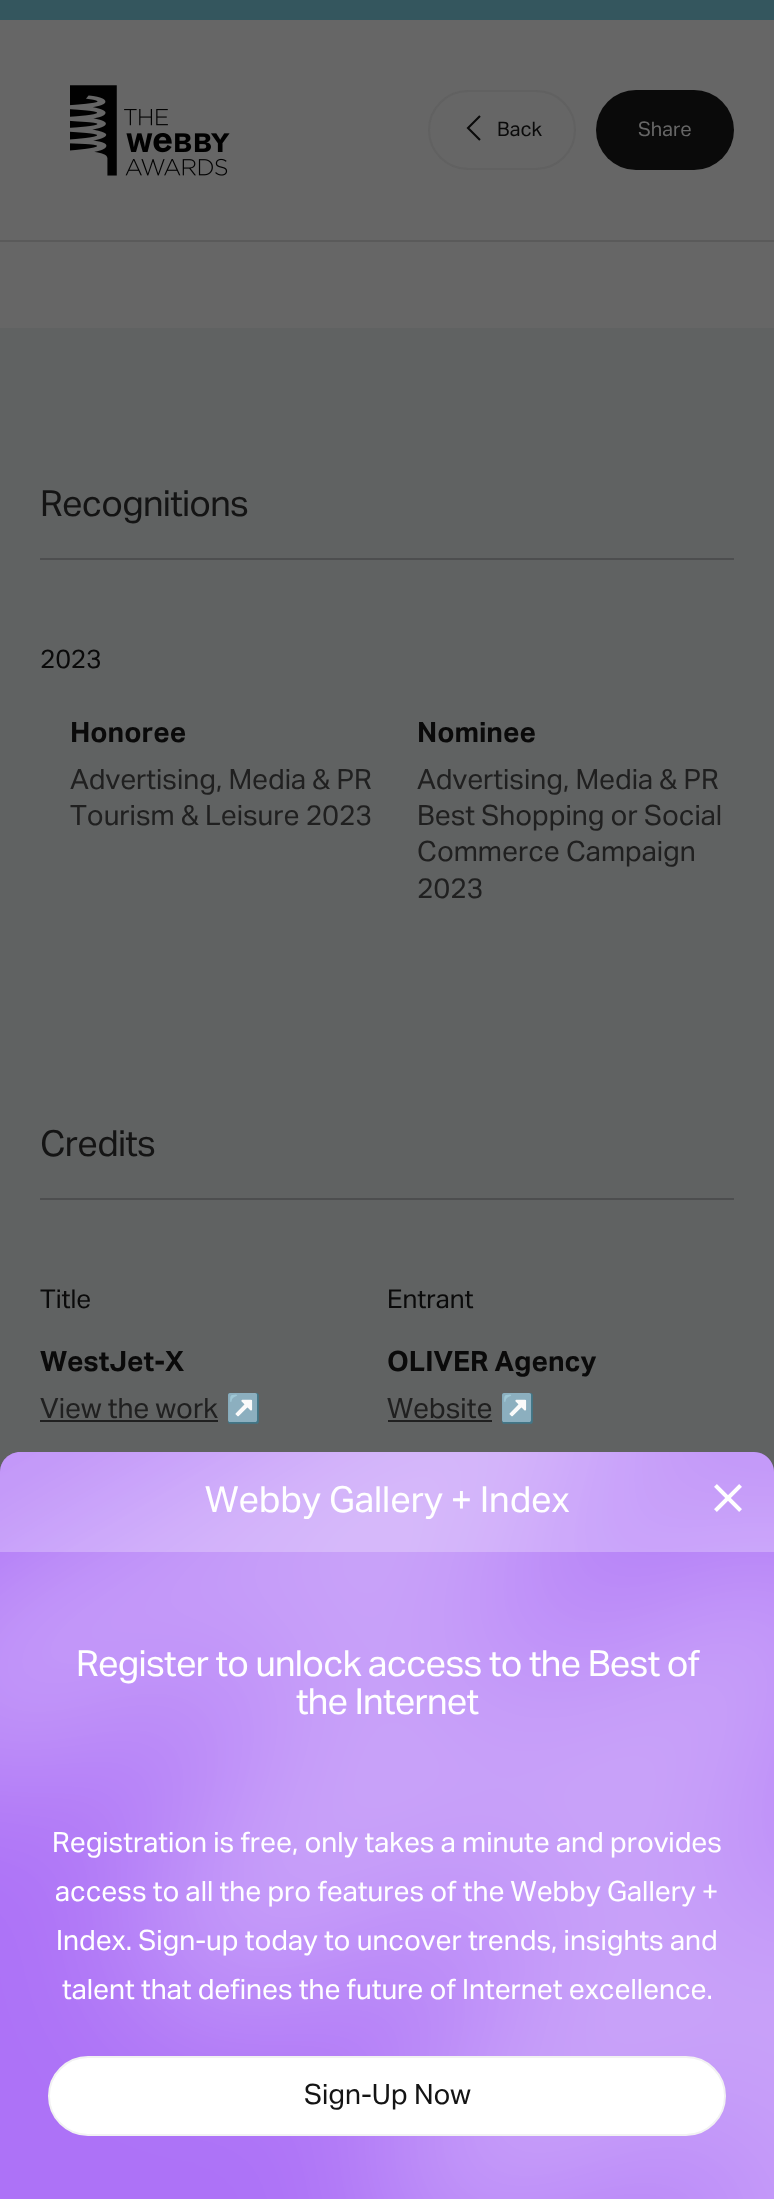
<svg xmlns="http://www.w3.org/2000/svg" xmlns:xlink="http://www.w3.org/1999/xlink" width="774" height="2199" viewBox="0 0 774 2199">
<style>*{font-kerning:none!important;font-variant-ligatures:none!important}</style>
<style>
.cls-1{font:20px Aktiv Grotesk;fill:#0a0a0a}
.cls-2{font:20px Aktiv Grotesk;fill:#666666}
.cls-3{font:36px Aktiv Grotesk;letter-spacing:-0.7px;fill:#141414}
.cls-4{font:26px Aktiv Grotesk;fill:#0a0a0a}
.cls-5{font:bold 28px Aktiv Grotesk;fill:#0a0a0a}
.cls-6{font:28px Aktiv Grotesk;fill:#202020}
.cls-7{font:28px Noto Color Emoji;fill:#202020}
.cls-8{font:36px Aktiv Grotesk;fill:#ffffff}
.cls-9{font:36px Aktiv Grotesk;letter-spacing:-0.7px;fill:#ffffff}
.cls-10{font:28px Aktiv Grotesk;fill:#ffffff}
.cls-11{font:28px Aktiv Grotesk;fill:#141414}
</style>
<rect width="100%" height="100%" fill="#666666"/>
<rect fill="#34565e" x="0" y="0" width="774" height="20"/>
<rect fill="#5a5a5a" x="0" y="240" width="774" height="2"/>
<image xlink:href="image0.png" x="70" y="85" width="160" height="91"/>
<rect fill="none" stroke="#616161" stroke-width="2" x="429" y="91" width="146" height="78" rx="39"/>
<path fill="none" stroke="#0a0a0a" stroke-width="2.1" d="M480 140L468 128L480 116"/>
<rect fill="#0a0a0a" x="596" y="90" width="138" height="80" rx="40"/>
<rect fill="#606262" x="0" y="328" width="774" height="1144"/>
<rect fill="#4d4e4f" x="40" y="558" width="694" height="2"/>
<rect fill="#4d4e4f" x="40" y="1198" width="694" height="2"/>
<rect fill="#202020" x="40" y="1420" width="178" height="2"/>
<rect fill="#202020" x="388" y="1420" width="104" height="2"/>
<path fill="#ad72f7" d="M20 1452H754C765 1452 774 1461 774 1472V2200H0V1472C0 1461 9 1452 20 1452Z"/>
<image xlink:href="image1.png" x="0" y="1452" width="774" height="747"/>
<path fill="#ffffff" fill-opacity="0.25" d="M20 1452H754C765 1452 774 1461 774 1472V1552H0V1472C0 1461 9 1452 20 1452Z"/>
<image xlink:href="image2.png" x="714" y="1484" width="28" height="28"/>
<rect fill="#ffffff" stroke="#f2f2f2" stroke-width="2" x="49" y="2057" width="676" height="78" rx="39"/>
<text class="cls-1" x="497" y="136">Back</text>
<text class="cls-2" x="638" y="136">Share</text>
<text class="cls-3" x="40" y="516">Recognitions</text>
<text class="cls-4" x="40" y="668">2023</text>
<text class="cls-5" x="70" y="742">Honoree</text>
<text class="cls-6"><tspan x="70" y="789">Advertising, Media &amp; PR</tspan><tspan x="70" y="825">Tourism &amp; Leisure 2023</tspan></text>
<text class="cls-5" x="417" y="742">Nominee</text>
<text class="cls-6"><tspan x="417" y="789">Advertising, Media &amp; PR</tspan><tspan x="417" y="825">Best Shopping or Social</tspan><tspan x="417" y="861">Commerce Campaign</tspan><tspan x="417" y="898">2023</tspan></text>
<text class="cls-3" x="40" y="1156">Credits</text>
<text class="cls-4" x="40" y="1308">Title</text>
<text class="cls-5" x="40" y="1371">WestJet-X</text>
<text class="cls-6" x="40" y="1418">View the work</text>
<text class="cls-7" x="226" y="1418">↗</text>
<text class="cls-4" x="387" y="1308">Entrant</text>
<text class="cls-5" x="387" y="1371">OLIVER Agency</text>
<text class="cls-6" x="387" y="1418">Website</text>
<text class="cls-7" x="500" y="1418">↗</text>
<text class="cls-8" x="205" y="1512">Webby Gallery + Index</text>
<text class="cls-9" x="76" y="1676">Register to unlock access to the Best of</text>
<text class="cls-9" x="296" y="1714">the Internet</text>
<text class="cls-10" x="52" y="1852">Registration is free, only takes a minute and provides</text>
<text class="cls-10" x="55" y="1901">access to all the pro features of the Webby</text>
<text class="cls-10" x="607" y="1901">Gallery +</text>
<text class="cls-10" x="56" y="1950">Index. Sign-up today to uncover trends, insights and</text>
<text class="cls-10" x="62" y="1999">talent that defines the future of Internet excellence.</text>
<text class="cls-11" x="304" y="2104">Sign-Up Now</text>
</svg>
